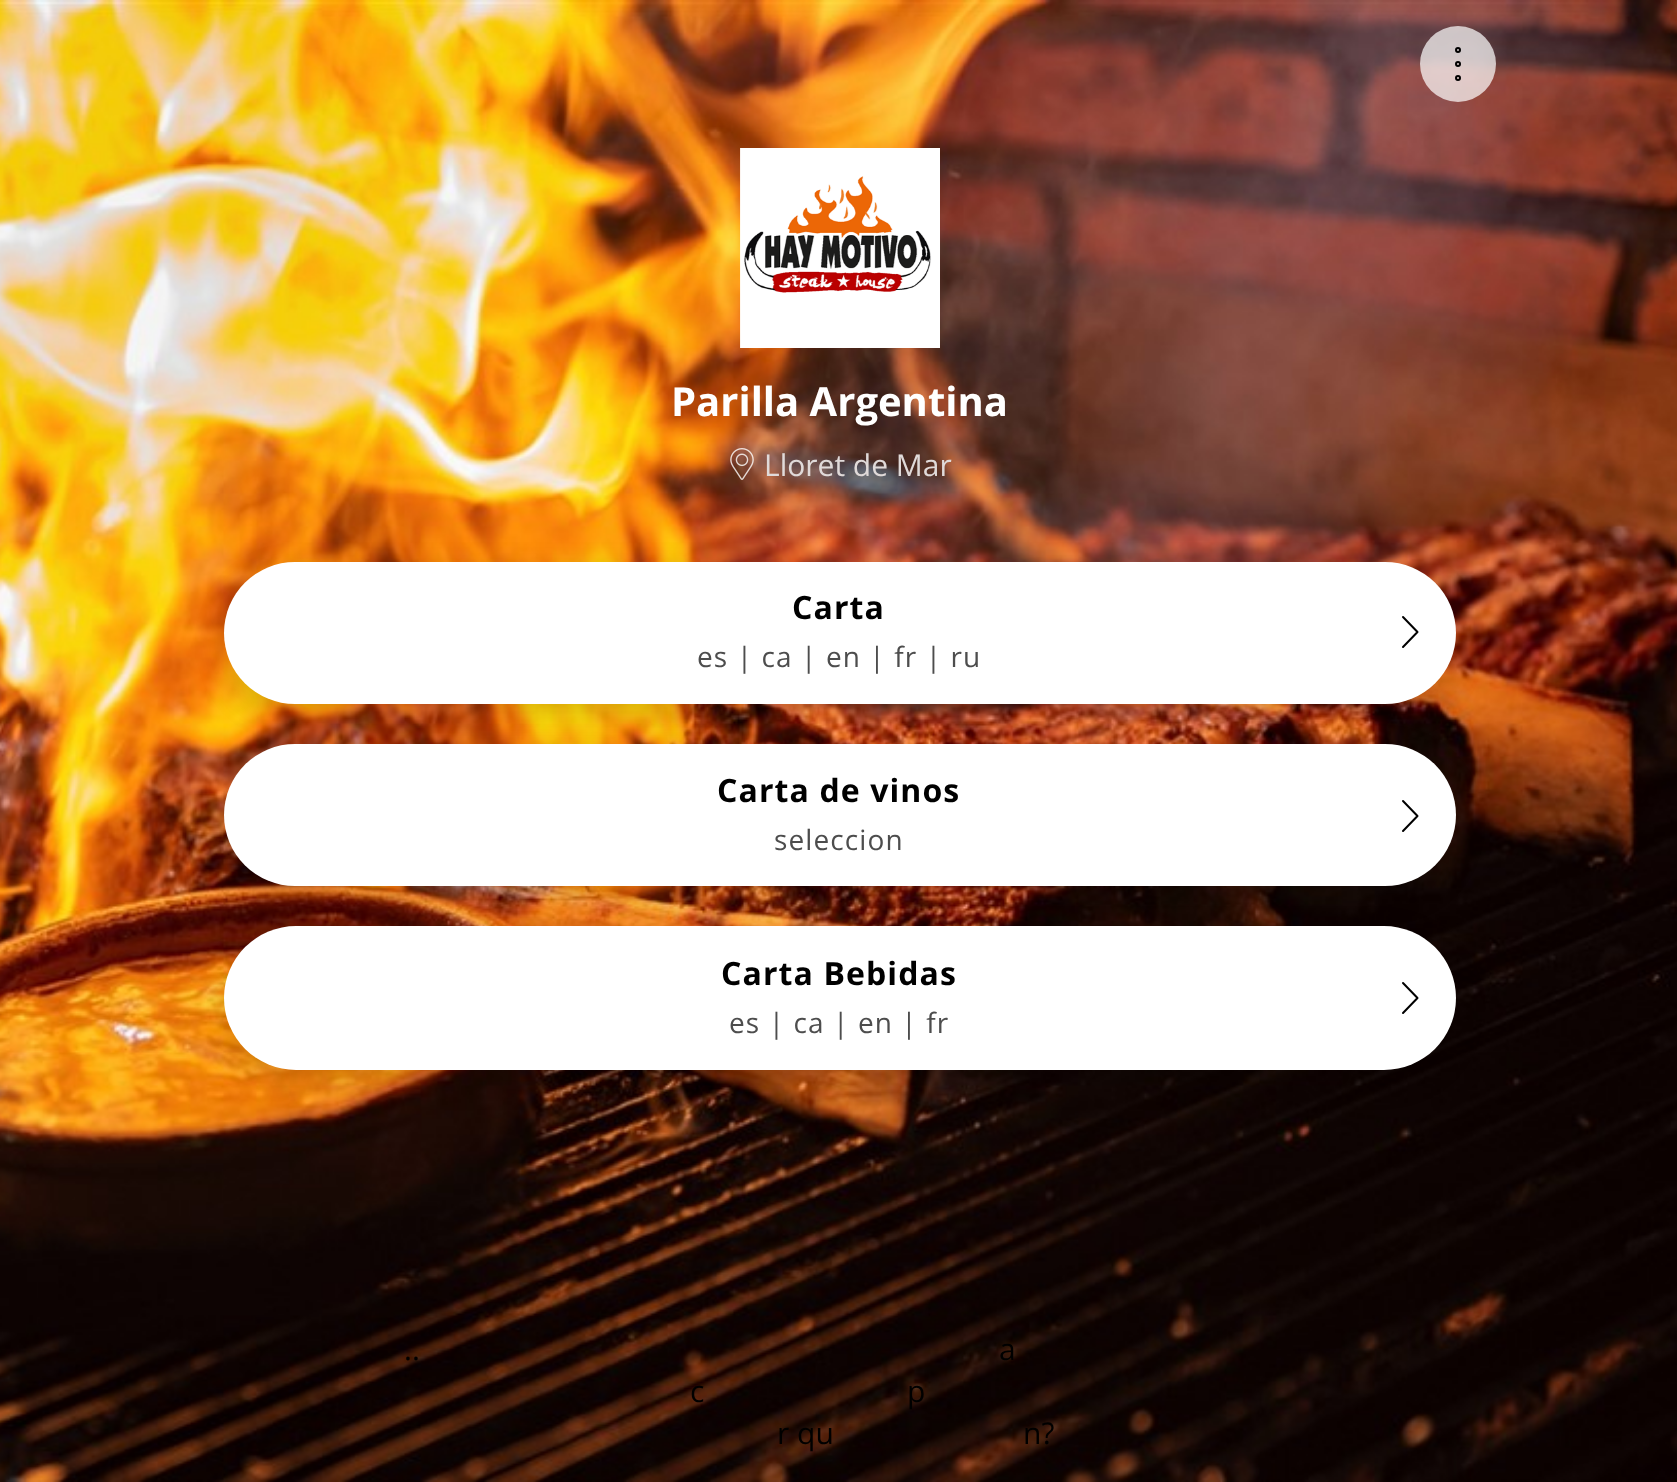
<svg xmlns="http://www.w3.org/2000/svg" xmlns:xlink="http://www.w3.org/1999/xlink" width="1677" height="1482" viewBox="0 0 1677 1482">
<style>
.cls-1{font:bold 40px Open Sans;fill:#ffffff}
.cls-2{font:30px Open Sans;fill:#e0dad9}
.cls-3{font:bold 32px Open Sans;letter-spacing:1.1px;fill:#000000}
.cls-4{font:28px Open Sans;letter-spacing:1.1px;fill:#4d4d4d}
.cls-5{font:30px Open Sans;fill:#000000}
</style>
<rect width="100%" height="100%" fill="#ffffff"/>
<image xlink:href="image0.png" x="0" y="0" width="1677" height="1482"/>
<circle fill="#ffffff" fill-opacity="0.7" cx="1458" cy="64" r="38"/>
<circle fill="none" stroke="#000000" stroke-width="4" cx="1458" cy="64" r="1"/>
<circle fill="none" stroke="#000000" stroke-width="4" cx="1458" cy="50" r="1"/>
<circle fill="none" stroke="#000000" stroke-width="4" cx="1458" cy="78" r="1"/>
<image xlink:href="image1.png" x="740" y="148" width="200" height="200"/>
<image xlink:href="image2.png" x="730" y="448" width="24" height="32"/>
<rect fill="#000000" fill-opacity="0.15" filter="blur(15px)" x="224" y="572" width="1232" height="142" rx="71"/>
<rect fill="#ffffff" x="224" y="562" width="1232" height="142" rx="71"/>
<path fill="none" stroke="#000000" stroke-width="2" stroke-linecap="round" stroke-linejoin="round" d="M1403 617L1417.5 632L1403 647"/>
<rect fill="#000000" fill-opacity="0.15" filter="blur(15px)" x="224" y="754" width="1232" height="142" rx="71"/>
<rect fill="#ffffff" x="224" y="744" width="1232" height="142" rx="71"/>
<path fill="none" stroke="#000000" stroke-width="2" stroke-linecap="round" stroke-linejoin="round" d="M1403 801L1417.5 816L1403 831"/>
<rect fill="#000000" fill-opacity="0.15" filter="blur(15px)" x="224" y="936" width="1232" height="144" rx="72"/>
<rect fill="#ffffff" x="224" y="926" width="1232" height="144" rx="72"/>
<path fill="none" stroke="#000000" stroke-width="2" stroke-linecap="round" stroke-linejoin="round" d="M1403 983L1417.5 998L1403 1013"/>
<text class="cls-1" x="671" y="416">Parilla Argentina</text>
<text class="cls-2" x="764" y="476">Lloret de Mar</text>
<text class="cls-3" x="792" y="619">Carta</text>
<text class="cls-4" x="697" y="667">es | ca | en | fr | ru</text>
<text class="cls-3" x="717" y="802">Carta de vinos</text>
<text class="cls-4" x="774" y="850">seleccion</text>
<text class="cls-3" x="721" y="985">Carta Bebidas</text>
<text class="cls-4" x="729" y="1033">es | ca | en | fr</text>
<text class="cls-5" x="404" y="1360">..</text>
<text class="cls-5" x="999" y="1360">a</text>
<text class="cls-5" x="690" y="1402">c</text>
<text class="cls-5" x="907" y="1402">p</text>
<text class="cls-5" x="777" y="1444">r qu</text>
<text class="cls-5" x="1023" y="1444">n?</text>
</svg>
